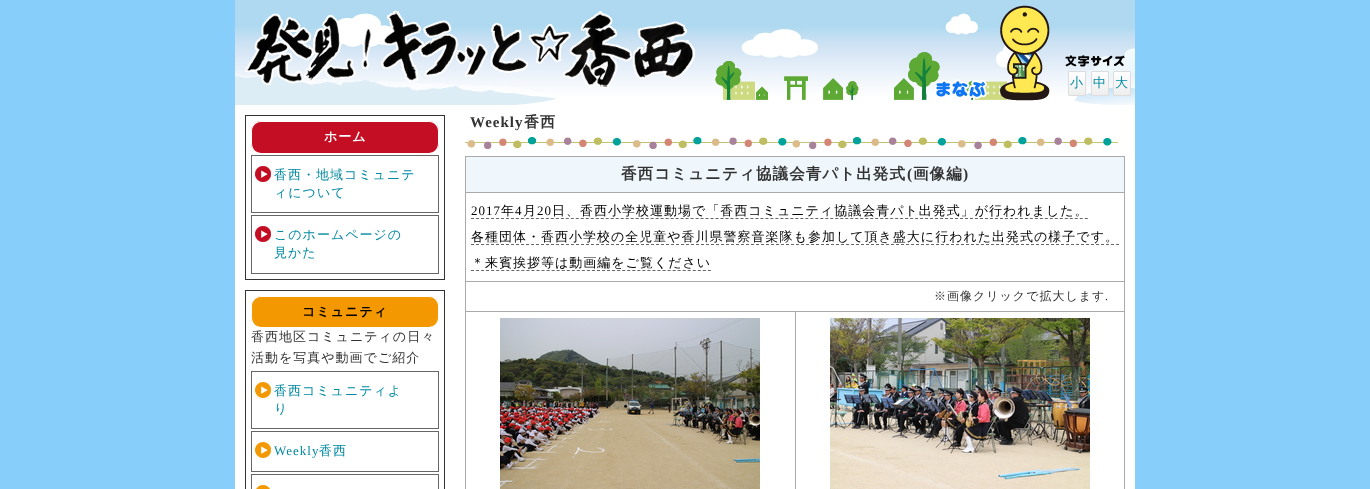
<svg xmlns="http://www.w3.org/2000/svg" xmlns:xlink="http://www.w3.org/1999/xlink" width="1370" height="489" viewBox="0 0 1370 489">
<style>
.cls-1{font:500 13px WenQuanYi Zen Hei;letter-spacing:1px;fill:#0089a1}
.cls-2{font:bold 13px WenQuanYi Zen Hei;letter-spacing:1px;fill:#ffffff}
.cls-3{font:bold 13px WenQuanYi Zen Hei;letter-spacing:1px;fill:#000000}
.cls-4{font:500 13px WenQuanYi Zen Hei;letter-spacing:1px;fill:#333333}
.cls-5{font:13px Liberation Serif;letter-spacing:1px;fill:#0089a1}
.cls-6{font:bold 15px Liberation Serif;letter-spacing:1px;fill:#333333}
.cls-7{font:bold 15px WenQuanYi Zen Hei;letter-spacing:1px;fill:#333333}
.cls-8{font:bold 15.6px WenQuanYi Zen Hei;letter-spacing:1px;fill:#333333}
.cls-9{font:bold 15.6px Liberation Serif;letter-spacing:1px;fill:#333333}
.cls-10{font:13px Liberation Serif;letter-spacing:1px;fill:#000000}
.cls-11{font:500 13px WenQuanYi Zen Hei;letter-spacing:1px;fill:#000000}
.cls-12{font:500 12px WenQuanYi Zen Hei;letter-spacing:1px;fill:#333333}
.cls-13{font:12px Liberation Serif;letter-spacing:1px;fill:#333333}
</style>
<defs>
<linearGradient id="g1" gradientUnits="userSpaceOnUse" x1="1077" y1="72" x2="1077" y2="95"><stop offset="0" stop-color="#fefefe"/><stop offset="1" stop-color="#eeeeee"/></linearGradient>
<linearGradient id="g2" gradientUnits="userSpaceOnUse" x1="1100" y1="72" x2="1100" y2="95"><stop offset="0" stop-color="#fefefe"/><stop offset="1" stop-color="#eeeeee"/></linearGradient>
<linearGradient id="g3" gradientUnits="userSpaceOnUse" x1="1122" y1="72" x2="1122" y2="95"><stop offset="0" stop-color="#fefefe"/><stop offset="1" stop-color="#eeeeee"/></linearGradient>
</defs>
<rect width="100%" height="100%" fill="#87cefa"/>
<rect fill="#ffffff" x="235" y="105" width="900" height="384"/>
<image xlink:href="image0.png" x="235" y="0" width="900" height="105"/>
<image xlink:href="image1.png" x="245" y="10" width="450" height="78"/>
<rect fill="url(#g1)" x="1069" y="72" width="16" height="23"/>
<rect fill="none" stroke="#dddddd" x="1068.5" y="71.5" width="17" height="24" rx="0.5"/>
<rect fill="url(#g2)" x="1092" y="72" width="16" height="23"/>
<rect fill="none" stroke="#dddddd" x="1091.5" y="71.5" width="17" height="24" rx="0.5"/>
<rect fill="url(#g3)" x="1114" y="72" width="16" height="23"/>
<rect fill="none" stroke="#dddddd" x="1113.5" y="71.5" width="17" height="24" rx="0.5"/>
<rect fill="none" stroke="#333333" x="245.5" y="115.5" width="199" height="164"/>
<rect fill="#c30e23" x="251" y="121" width="188" height="32" rx="10"/>
<path fill="#ffffff" fill-rule="evenodd" d="M261 121H429C435 121 439 125 439 131V143C439 149 435 153 429 153H261C255 153 251 149 251 143V131C251 125 255 121 261 121ZM261 122H429C434 122 438 126 438 131V143C438 149 434 153 429 153H261C256 153 252 149 252 143V131C252 126 256 122 261 122Z"/>
<image xlink:href="image2.png" x="255" y="166" width="16" height="16"/>
<rect fill="none" stroke="#666666" x="251.5" y="155.5" width="187" height="57"/>
<image xlink:href="image2.png" x="255" y="226" width="16" height="16"/>
<rect fill="none" stroke="#666666" x="251.5" y="215.5" width="187" height="58"/>
<rect fill="none" stroke="#333333" x="245.5" y="290.5" width="199" height="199"/>
<rect fill="#f39800" x="251" y="296" width="188" height="31" rx="10"/>
<path fill="#ffffff" fill-rule="evenodd" d="M261 296H429C435 296 439 300 439 306V317C439 323 435 327 429 327H261C255 327 251 323 251 317V306C251 300 255 296 261 296ZM261 297H429C434 297 438 301 438 306V317C438 323 434 327 429 327H261C256 327 252 323 252 317V306C252 301 256 297 261 297Z"/>
<image xlink:href="image3.png" x="255" y="382" width="16" height="16"/>
<rect fill="none" stroke="#666666" x="251.5" y="371.5" width="187" height="57"/>
<image xlink:href="image3.png" x="255" y="442" width="16" height="16"/>
<rect fill="none" stroke="#666666" x="251.5" y="431.5" width="187" height="40"/>
<image xlink:href="image4.png" x="256" y="485" width="14" height="4"/>
<rect fill="none" stroke="#666666" x="251.5" y="474.5" width="187" height="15"/>
<image xlink:href="image5.png" x="465" y="137" width="653" height="12"/>
<rect fill="#f0f7fc" x="466" y="157" width="658" height="35"/>
<rect fill="#aaaaaa" x="465" y="156" width="660" height="1"/>
<rect fill="#aaaaaa" x="465" y="192" width="660" height="1"/>
<rect fill="#aaaaaa" x="465" y="281" width="660" height="1"/>
<rect fill="#aaaaaa" x="795" y="311" width="330" height="1"/>
<rect fill="#aaaaaa" x="1124" y="311" width="1" height="178"/>
<rect fill="#aaaaaa" x="1124" y="281" width="1" height="31"/>
<rect fill="#aaaaaa" x="1124" y="192" width="1" height="90"/>
<rect fill="#aaaaaa" x="1124" y="156" width="1" height="37"/>
<rect fill="#aaaaaa" x="795" y="311" width="1" height="178"/>
<rect fill="#aaaaaa" x="465" y="311" width="331" height="1"/>
<rect fill="#aaaaaa" x="465" y="311" width="1" height="178"/>
<rect fill="#aaaaaa" x="465" y="281" width="1" height="31"/>
<rect fill="#aaaaaa" x="465" y="192" width="1" height="90"/>
<rect fill="#aaaaaa" x="465" y="156" width="1" height="37"/>
<path fill="none" stroke="#666666" stroke-dasharray="3 1.99" d="M471 218.5H1088"/>
<path fill="none" stroke="#666666" stroke-dasharray="3 2" d="M471 244.5H1119"/>
<path fill="none" stroke="#666666" stroke-dasharray="3 2.04" d="M471 270.5H711"/>
<image xlink:href="image6.png" x="500" y="318" width="260" height="171"/>
<image xlink:href="image7.png" x="830" y="318" width="260" height="171"/>
<text class="cls-1" x="1070" y="87">小</text>
<text class="cls-1" x="1093" y="87">中</text>
<text class="cls-1" x="1115" y="87">大</text>
<text class="cls-2" x="324" y="141">ホーム</text>
<text class="cls-1"><tspan x="274" y="179">香西・地域コミュニテ</tspan><tspan x="274" y="197">ィについて</tspan></text>
<text class="cls-1"><tspan x="274" y="239">このホームページの</tspan><tspan x="274" y="257">見かた</tspan></text>
<text class="cls-3" x="302" y="316">コミュニティ</text>
<text class="cls-4"><tspan x="251" y="341">香西地区コミュニティの日々</tspan><tspan x="251" y="362">活動を写真や動画でご紹介</tspan></text>
<text class="cls-1"><tspan x="274" y="395">香西コミュニティよ</tspan><tspan x="274" y="413">り</tspan></text>
<text class="cls-5" x="274" y="455">Weekly</text>
<text class="cls-1" x="319" y="455">香西</text>
<text class="cls-6" x="470" y="127">Weekly</text>
<text class="cls-7" x="524" y="127">香西</text>
<text class="cls-8" x="621" y="179">香西コミュニティ協議会青パト出発式</text>
<text class="cls-9" x="907" y="179">(</text>
<text class="cls-8" x="913" y="179">画像編</text>
<text class="cls-9" x="963" y="179">)</text>
<text class="cls-10" x="471" y="215">2017</text>
<text class="cls-11" x="501" y="215">年</text>
<text class="cls-10" x="515" y="215">4</text>
<text class="cls-11" x="523" y="215">月</text>
<text class="cls-10" x="537" y="215">20</text>
<text class="cls-11" x="552" y="215">日、香西小学校運動場で「香西コミュニティ協議会青パト出発式」が行われました。</text>
<text class="cls-11" x="471" y="241">各種団体・香西小学校の全児童や香川県警察音楽隊も参加して頂き盛大に行われた出発式の様子です。</text>
<text class="cls-11" x="471" y="267">＊来賓挨拶等は動画編をご覧ください</text>
<text class="cls-12" x="934" y="300">※画像クリックで拡大します</text>
<text class="cls-13" x="1105" y="300">.</text>
</svg>
